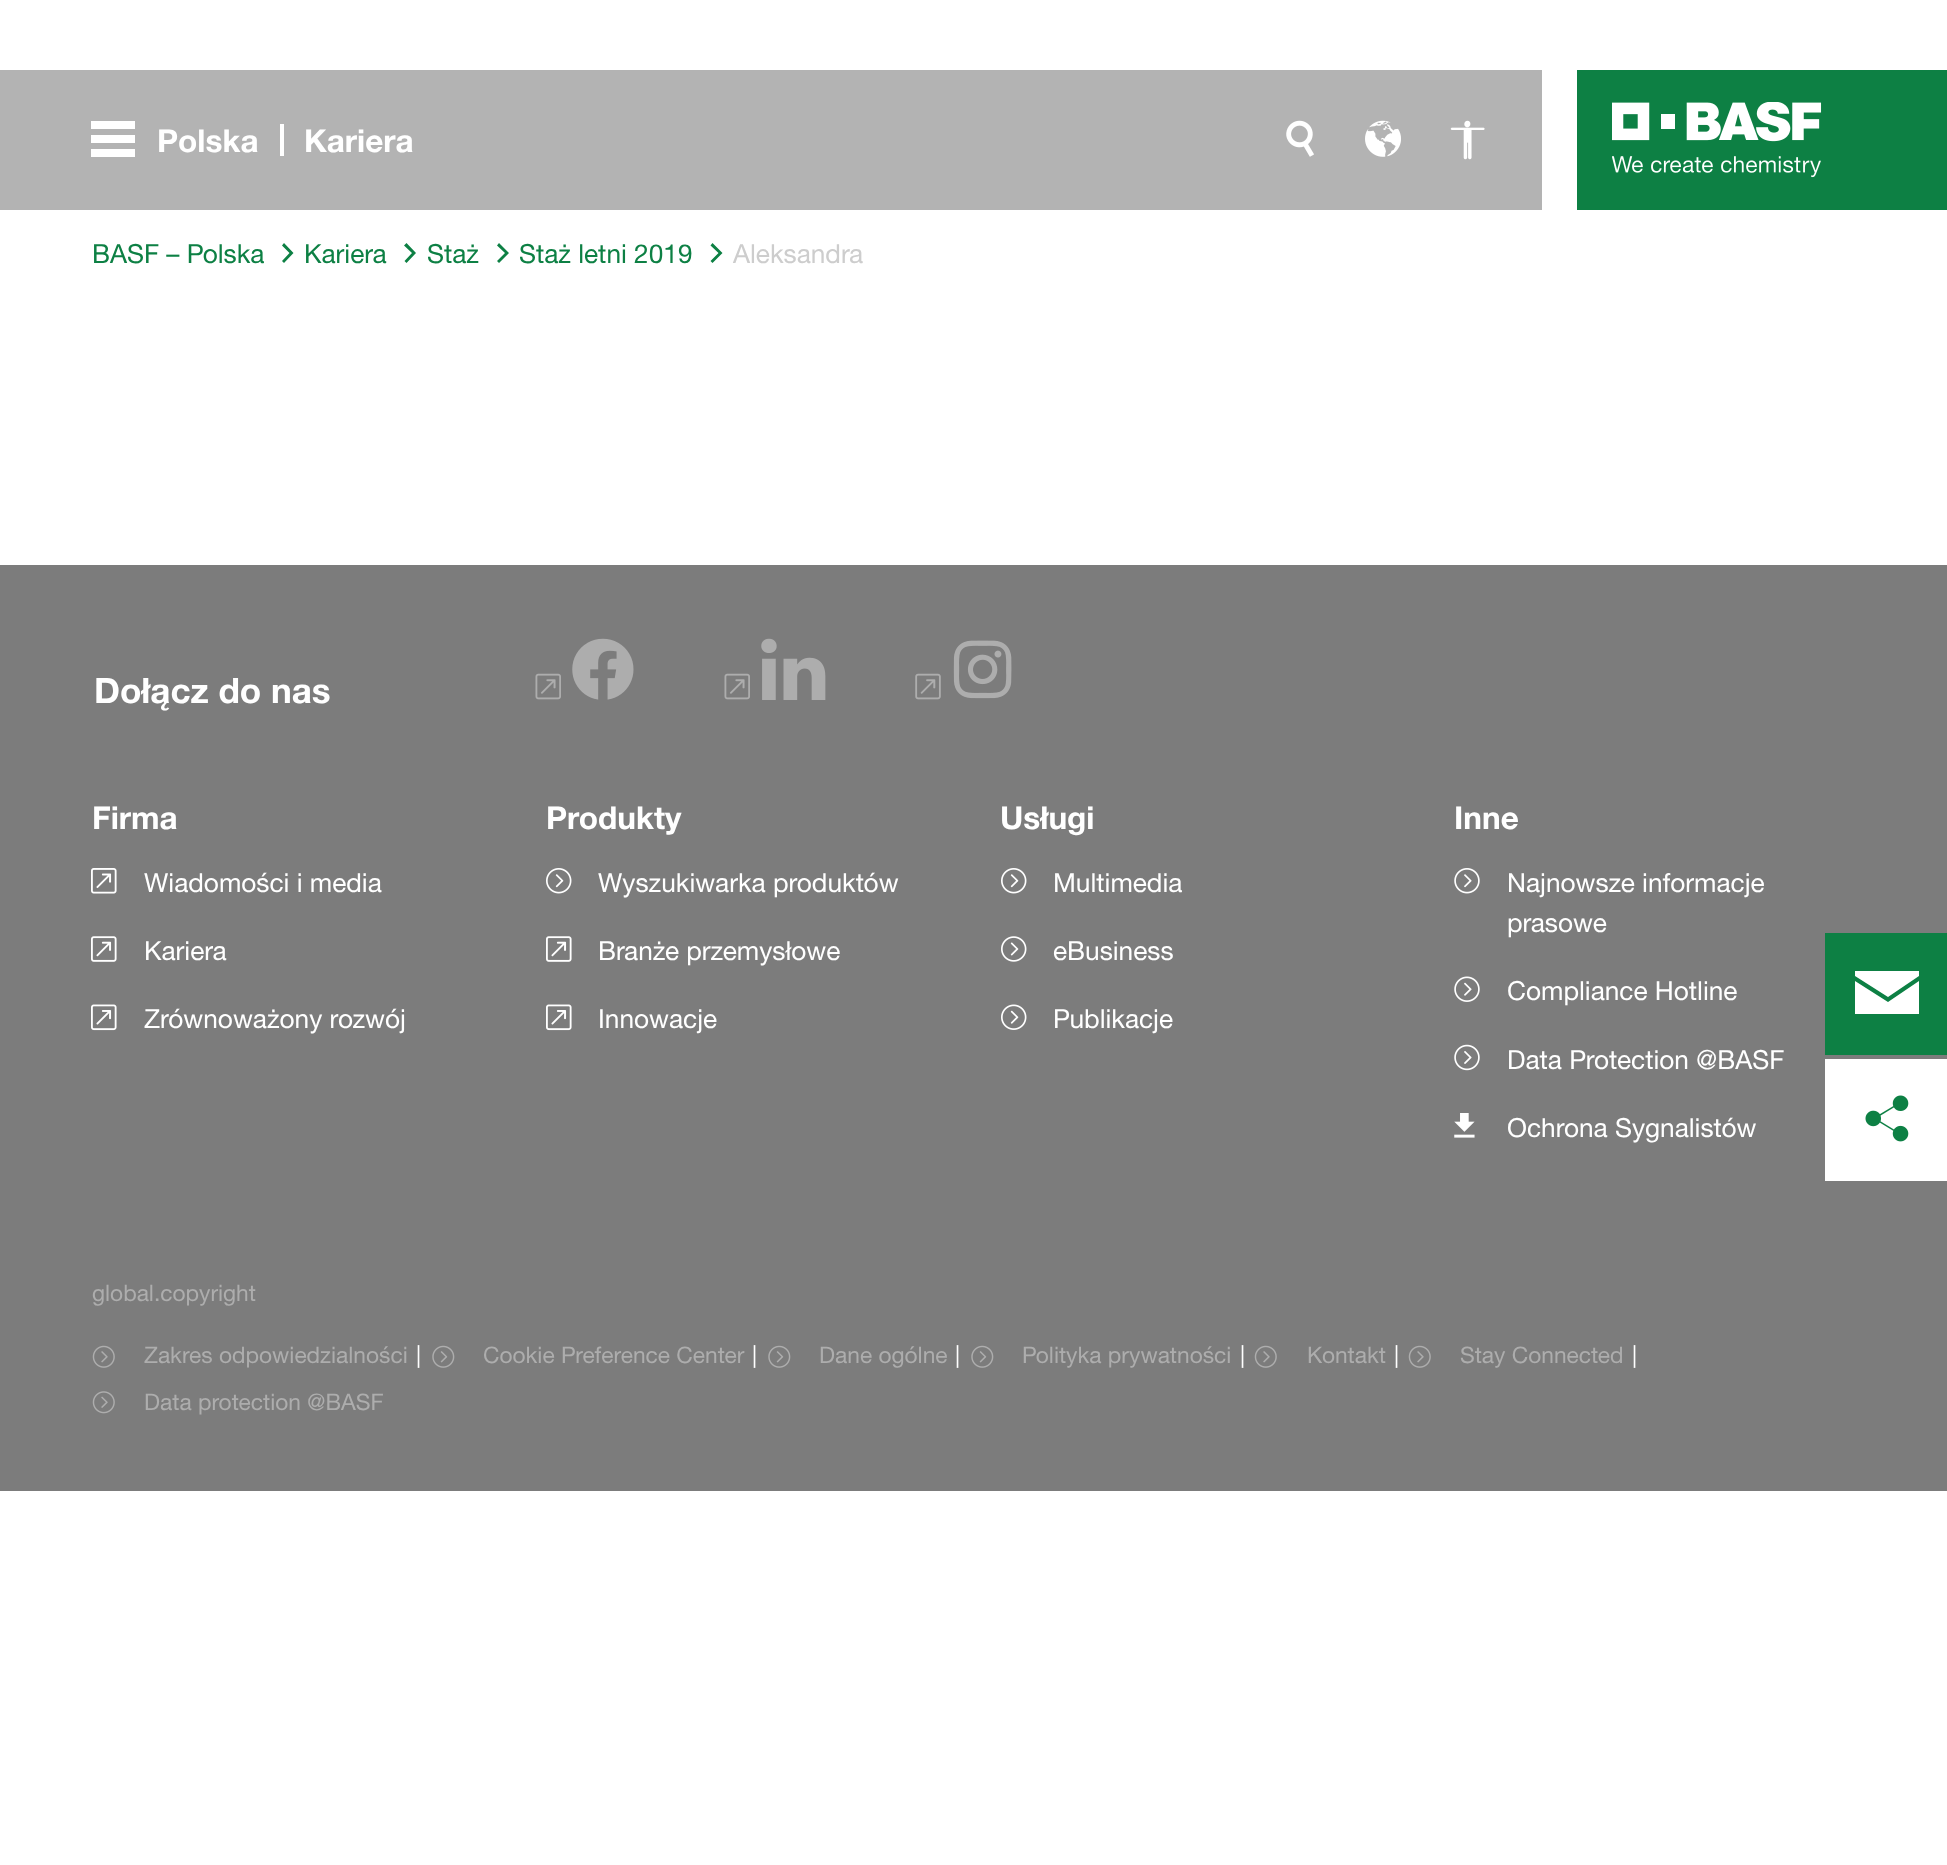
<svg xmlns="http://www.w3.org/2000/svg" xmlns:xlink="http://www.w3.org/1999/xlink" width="1947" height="1865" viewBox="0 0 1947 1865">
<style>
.cls-1{font:bold 31.5px 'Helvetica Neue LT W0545';fill:#ffffff}
.cls-2{font:26.25px 'Helvetica Neue LT W0545';fill:#0d8044}
.cls-3{font:26.25px 'Helvetica Neue LT W0545';fill:#cdcdcd}
.cls-4{font:bold 35px 'Helvetica Neue LT W0545';fill:#ffffff}
.cls-5{font:26.25px 'Helvetica Neue LT W0545';fill:#ffffff}
.cls-6{font:22.75px 'Helvetica Neue LT W0545';fill:#adadad}
.cls-7{font:22.75px 'Helvetica Neue LT W0545';fill:#ffffff}
</style>
<rect width="100%" height="100%" fill="#ffffff"/>
<rect fill="#b3b3b3" x="0" y="70" width="1542" height="140"/>
<path fill="#ffffff" d="M91 121H135V129H91ZM91 135H135V143H91ZM91 149H135V157H91Z"/>
<rect fill="#ffffff" x="280" y="124" width="4" height="32"/>
<image xlink:href="image0.png" x="1286" y="120" width="28" height="37"/>
<image xlink:href="image1.png" x="1365" y="120" width="36" height="37"/>
<image xlink:href="image2.png" x="1450" y="120" width="35" height="40"/>
<rect fill="#0d8044" x="1577" y="70" width="370" height="140"/>
<image xlink:href="image3.png" x="1612" y="102" width="210" height="76"/>
<path fill="#0d8044" d="M293.5 253L284 263L282 261L289.5 253L282 245.5L284 243Z"/>
<path fill="#0d8044" d="M416 253L406.5 263L404.5 261L412 253L404 245.5L406.5 243Z"/>
<path fill="#0d8044" d="M509 253L499 263L497 261L505 253L497 245.5L499 243Z"/>
<path fill="#0d8044" d="M722.5 253L712.5 263L710.5 261L718.5 253L710.5 245.5L712.5 243Z"/>
<rect fill="#7c7c7c" x="0" y="565" width="1947" height="926"/>
<rect fill="#0d8044" x="1825" y="933" width="122" height="122"/>
<path fill="#ffffff" d="M1855 971H1919V976L1888 997L1855 976ZM1855 981L1888 1002L1919 981V1014H1855Z"/>
<rect fill="#ffffff" x="1825" y="1059" width="122" height="122"/>
<image xlink:href="image4.png" x="1865" y="1095" width="44" height="47"/>
<image xlink:href="image5.png" x="535" y="673" width="26" height="27"/>
<image xlink:href="image6.png" x="572" y="638" width="62" height="62"/>
<image xlink:href="image5.png" x="724" y="673" width="26" height="27"/>
<image xlink:href="image7.png" x="761" y="638" width="65" height="62"/>
<image xlink:href="image8.png" x="915" y="673" width="26" height="27"/>
<image xlink:href="image9.png" x="953" y="640" width="59" height="59"/>
<image xlink:href="image10.png" x="91" y="868" width="26" height="26"/>
<image xlink:href="image11.png" x="91" y="936" width="26" height="26"/>
<image xlink:href="image12.png" x="91" y="1004" width="26" height="27"/>
<image xlink:href="image13.png" x="546" y="868" width="26" height="26"/>
<image xlink:href="image11.png" x="546" y="936" width="26" height="26"/>
<image xlink:href="image12.png" x="546" y="1004" width="26" height="27"/>
<image xlink:href="image13.png" x="1001" y="868" width="26" height="26"/>
<image xlink:href="image14.png" x="1001" y="936" width="26" height="26"/>
<image xlink:href="image15.png" x="1001" y="1004" width="26" height="26"/>
<image xlink:href="image16.png" x="1454" y="868" width="26" height="26"/>
<image xlink:href="image17.png" x="1454" y="976" width="26" height="26"/>
<image xlink:href="image18.png" x="1454" y="1044" width="26" height="27"/>
<image xlink:href="image19.png" x="1454" y="1113" width="21" height="25"/>
<image xlink:href="image20.png" x="92" y="1345" width="23" height="23"/>
<image xlink:href="image21.png" x="432" y="1345" width="23" height="23"/>
<image xlink:href="image21.png" x="768" y="1345" width="23" height="23"/>
<image xlink:href="image21.png" x="971" y="1345" width="23" height="23"/>
<image xlink:href="image20.png" x="1254" y="1345" width="23" height="23"/>
<image xlink:href="image20.png" x="1408" y="1345" width="23" height="23"/>
<image xlink:href="image22.png" x="92" y="1391" width="23" height="23"/>
<text class="cls-1" x="157" y="152">Polska</text>
<text class="cls-1" x="304" y="152">Kariera</text>
<text class="cls-2" x="92" y="263">BASF – Polska</text>
<text class="cls-2" x="304" y="263">Kariera</text>
<text class="cls-2" x="427" y="263">Staż</text>
<text class="cls-2" x="519" y="263">Staż letni 2019</text>
<text class="cls-3" x="733" y="263">Aleksandra</text>
<text class="cls-4" x="94" y="703">Dołącz do nas</text>
<text class="cls-1" x="92" y="829">Firma</text>
<text class="cls-5" x="144" y="892">Wiadomości i media</text>
<text class="cls-5" x="144" y="960">Kariera</text>
<text class="cls-5" x="144" y="1028">Zrównoważony rozwój</text>
<text class="cls-1" x="546" y="829">Produkty</text>
<text class="cls-5" x="598" y="892">Wyszukiwarka produktów</text>
<text class="cls-5" x="598" y="960">Branże przemysłowe</text>
<text class="cls-5" x="598" y="1028">Innowacje</text>
<text class="cls-1" x="1000" y="829">Usługi</text>
<text class="cls-5" x="1053" y="892">Multimedia</text>
<text class="cls-5" x="1053" y="960">eBusiness</text>
<text class="cls-5" x="1053" y="1028">Publikacje</text>
<text class="cls-1" x="1454" y="829">Inne</text>
<text class="cls-5"><tspan x="1507" y="892">Najnowsze informacje</tspan><tspan x="1507" y="932">prasowe</tspan></text>
<text class="cls-5" x="1507" y="1000">Compliance Hotline</text>
<text class="cls-5" x="1507" y="1069">Data Protection @BASF</text>
<text class="cls-5" x="1507" y="1137">Ochrona Sygnalistów</text>
<text class="cls-6" x="92" y="1301">global.copyright</text>
<text class="cls-6" x="144" y="1363">Zakres odpowiedzialności</text>
<text class="cls-7" x="416" y="1363">|</text>
<text class="cls-6" x="483" y="1363">Cookie Preference Center</text>
<text class="cls-7" x="752" y="1363">|</text>
<text class="cls-6" x="819" y="1363">Dane ogólne</text>
<text class="cls-7" x="955" y="1363">|</text>
<text class="cls-6" x="1022" y="1363">Polityka prywatności</text>
<text class="cls-7" x="1240" y="1363">|</text>
<text class="cls-6" x="1307" y="1363">Kontakt</text>
<text class="cls-7" x="1394" y="1363">|</text>
<text class="cls-6" x="1460" y="1363">Stay Connected</text>
<text class="cls-7" x="1632" y="1363">|</text>
<text class="cls-6" x="144" y="1410">Data protection @BASF</text>
</svg>
